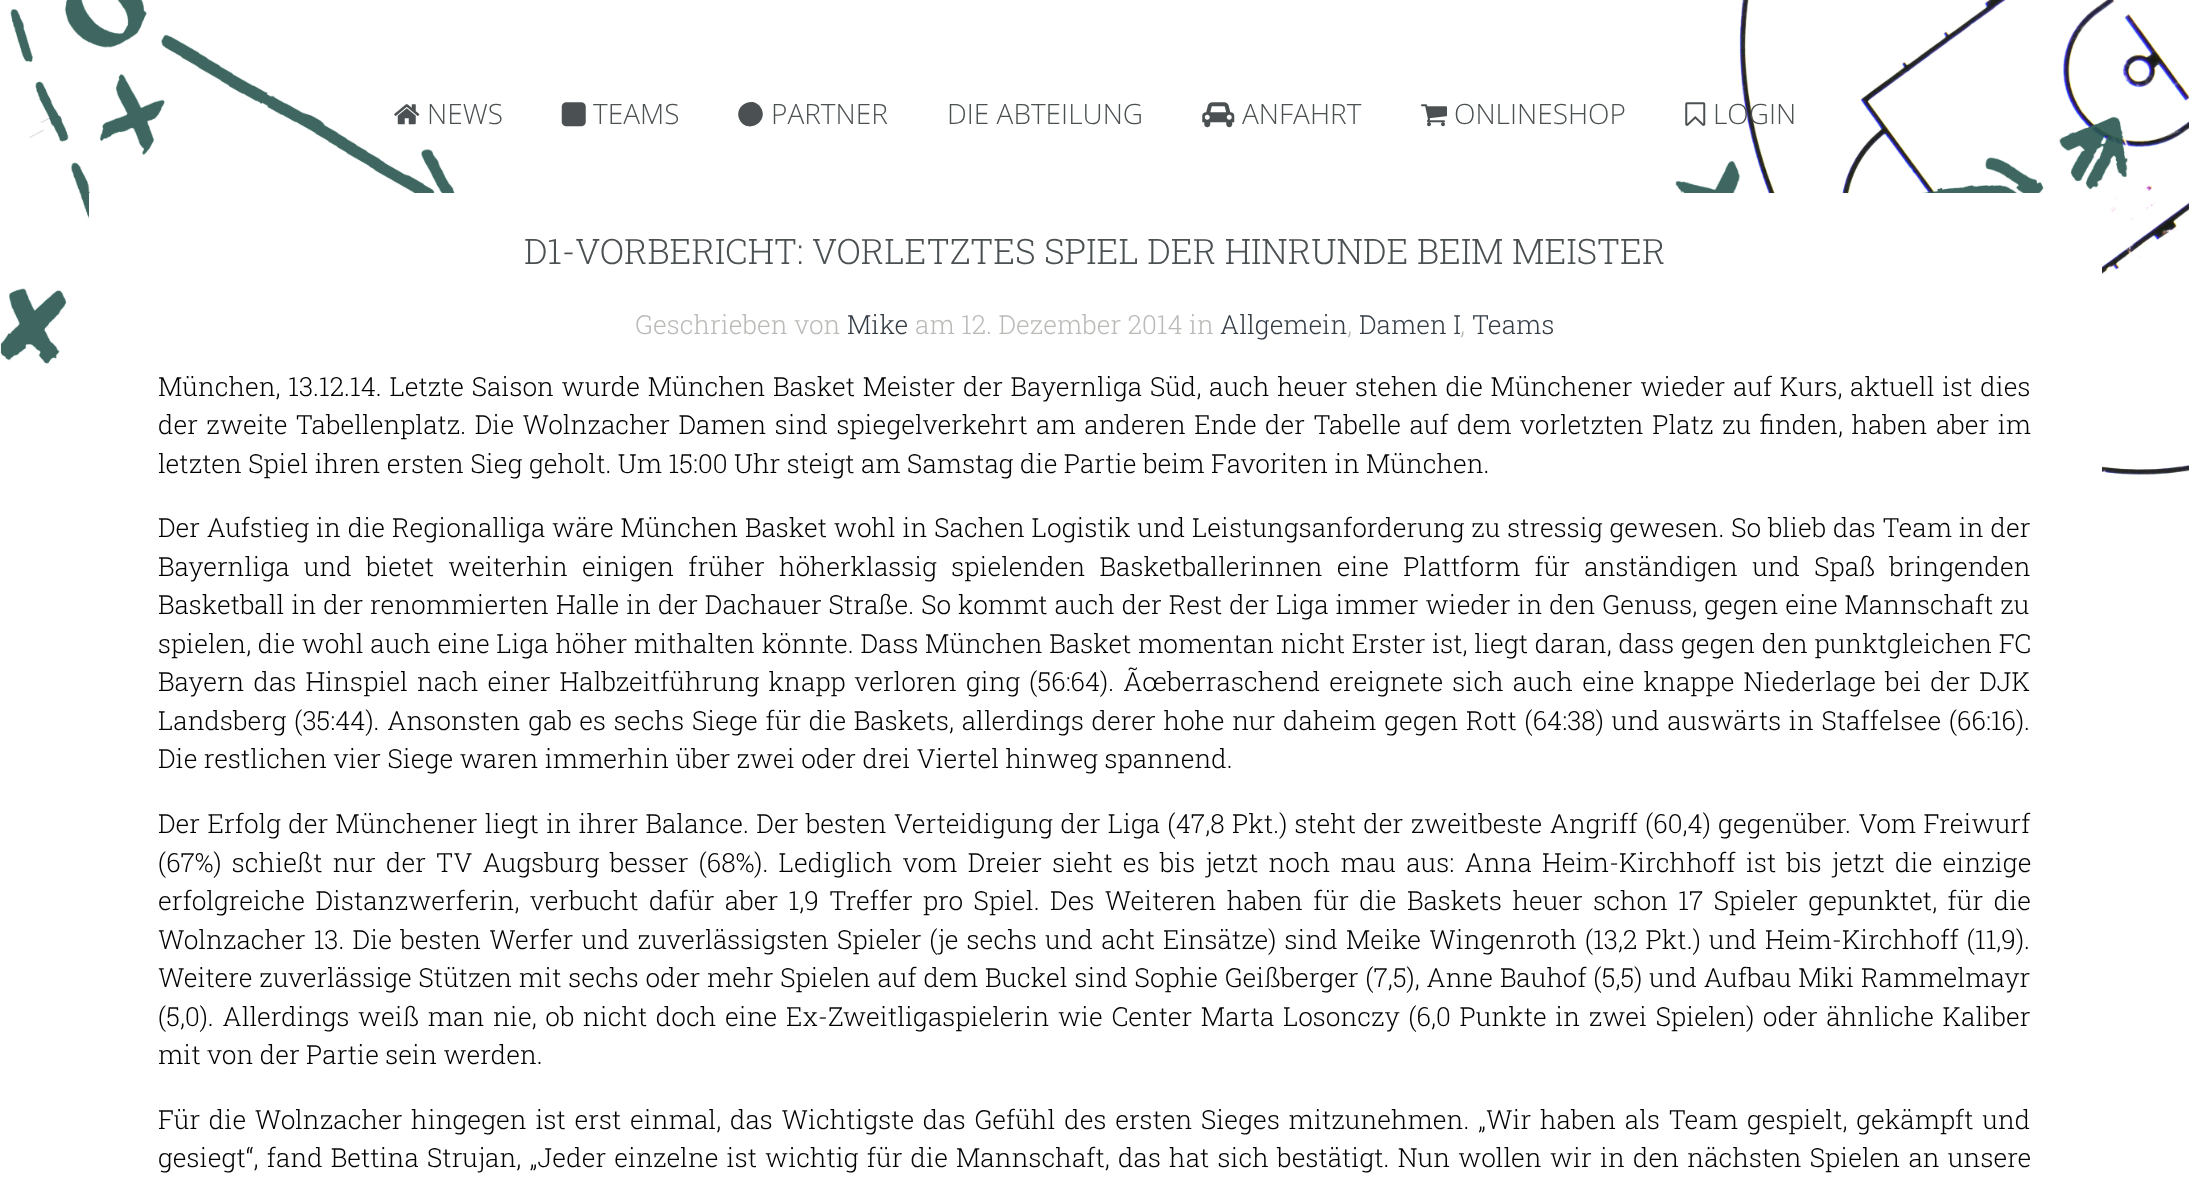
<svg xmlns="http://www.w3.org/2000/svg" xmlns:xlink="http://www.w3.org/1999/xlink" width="2189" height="1179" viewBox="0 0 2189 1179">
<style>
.cls-1{font:300 28px Open Sans;fill:#4b5052}
.cls-2{font:300 35px Roboto Slab;fill:#4b5052}
.cls-3{font:300 26.25px Roboto Slab;fill:#babab7}
.cls-4{font:300 26.25px Roboto Slab;fill:#343c45}
.cls-5{font:300 26.25px Roboto Slab;fill:#000000}
</style>
<defs>
<linearGradient id="g1" gradientUnits="userSpaceOnUse" x1="1095" y1="0" x2="1095" y2="947"><stop offset="0" stop-color="#000000" stop-opacity="0"/><stop offset="0.7" stop-color="#ffffff" stop-opacity="0"/><stop offset="1" stop-color="#ffffff"/></linearGradient>
</defs>
<rect width="100%" height="100%" fill="#ffffff"/>
<image xlink:href="image0.png" x="0" y="0" width="2189" height="816"/>
<rect fill="url(#g1)" x="990" y="738" width="53" height="78"/>
<image xlink:href="image1.png" x="394" y="104" width="26" height="21"/>
<image xlink:href="image2.png" x="561" y="102" width="25" height="25"/>
<path fill="#4b5052" d="M761 108C769 122 748 134 740 120.5C732 106.5 753 94.5 761 108Z"/>
<image xlink:href="image3.png" x="1202" y="102" width="33" height="26"/>
<image xlink:href="image4.png" x="1421" y="104" width="26" height="23"/>
<image xlink:href="image5.png" x="1685" y="102" width="21" height="24"/>
<rect fill="#ffffff" x="89" y="193" width="2013" height="623"/>
<text class="cls-1" x="427" y="124">NEWS</text>
<text class="cls-1" x="593" y="124">TEAMS</text>
<text class="cls-1" x="771" y="124">PARTNER</text>
<text class="cls-1" x="947" y="124">DIE ABTEILUNG</text>
<text class="cls-1" x="1242" y="124">ANFAHRT</text>
<text class="cls-1" x="1454" y="124">ONLINESHOP</text>
<text class="cls-1" x="1713" y="124">LOGIN</text>
<text class="cls-2" x="524" y="264">D1-VORBERICHT: VORLETZTES SPIEL DER HINRUNDE BEIM MEISTER</text>
<text class="cls-3" x="635" y="334">Geschrieben von</text>
<text class="cls-4" x="847" y="334">Mike</text>
<text class="cls-3" x="915" y="334">am 12. Dezember 2014 in</text>
<text class="cls-4" x="1220" y="334">Allgemein</text>
<text class="cls-3" x="1347" y="334">,</text>
<text class="cls-4" x="1359" y="334">Damen I</text>
<text class="cls-3" x="1460" y="334">,</text>
<text class="cls-4" x="1472" y="334">Teams</text>
<text class="cls-5"><tspan x="158" y="396" word-spacing="1.25">München, 13.12.14. Letzte Saison wurde München Basket Meister der Bayernliga Süd, auch heuer stehen die Münchener wieder auf Kurs, aktuell ist dies</tspan><tspan x="158" y="434" word-spacing="2">der zweite Tabellenplatz. Die Wolnzacher Damen sind spiegelverkehrt am anderen Ende der Tabelle auf dem vorletzten Platz zu finden, haben aber im</tspan><tspan x="158" y="473">letzten Spiel ihren ersten Sieg geholt. Um 15:00 Uhr steigt am Samstag die Partie beim Favoriten in München.</tspan></text>
<text class="cls-5"><tspan x="158" y="537" word-spacing="0.4">Der Aufstieg in die Regionalliga wäre München Basket wohl in Sachen Logistik und Leistungsanforderung zu stressig gewesen. So blieb das Team in der</tspan><tspan x="158" y="576" word-spacing="7.75">Bayernliga und bietet weiterhin einigen früher höherklassig spielenden Basketballerinnen eine Plattform für anständigen und Spaß bringenden</tspan><tspan x="158" y="614" word-spacing="0.5">Basketball in der renommierten Halle in der Dachauer Straße. So kommt auch der Rest der Liga immer wieder in den Genuss, gegen eine Mannschaft zu</tspan><tspan x="158" y="653" word-spacing="0.25">spielen, die wohl auch eine Liga höher mithalten könnte. Dass München Basket momentan nicht Erster ist, liegt daran, dass gegen den punktgleichen FC</tspan><tspan x="158" y="691" word-spacing="2.6">Bayern das Hinspiel nach einer Halbzeitführung knapp verloren ging (56:64). Ãœberraschend ereignete sich auch eine knappe Niederlage bei der DJK</tspan><tspan x="158" y="730" word-spacing="1.3">Landsberg (35:44). Ansonsten gab es sechs Siege für die Baskets, allerdings derer hohe nur daheim gegen Rott (64:38) und auswärts in Staffelsee (66:16).</tspan><tspan x="158" y="768">Die restlichen vier Siege waren immerhin über zwei oder drei Viertel hinweg spannend.</tspan></text>
<text class="cls-5"><tspan x="158" y="833" word-spacing="0.95">Der Erfolg der Münchener liegt in ihrer Balance. Der besten Verteidigung der Liga (47,8 Pkt.) steht der zweitbeste Angriff (60,4) gegenüber. Vom Freiwurf</tspan><tspan x="158" y="872" word-spacing="3.8">(67%) schießt nur der TV Augsburg besser (68%). Lediglich vom Dreier sieht es bis jetzt noch mau aus: Anna Heim-Kirchhoff ist bis jetzt die einzige</tspan><tspan x="158" y="910" word-spacing="4">erfolgreiche Distanzwerferin, verbucht dafür aber 1,9 Treffer pro Spiel. Des Weiteren haben für die Baskets heuer schon 17 Spieler gepunktet, für die</tspan><tspan x="158" y="949" word-spacing="1.75">Wolnzacher 13. Die besten Werfer und zuverlässigsten Spieler (je sechs und acht Einsätze) sind Meike Wingenroth (13,2 Pkt.) und Heim-Kirchhoff (11,9).</tspan><tspan x="158" y="987" word-spacing="0.4">Weitere zuverlässige Stützen mit sechs oder mehr Spielen auf dem Buckel sind Sophie Geißberger (7,5), Anne Bauhof (5,5) und Aufbau Miki Rammelmayr</tspan><tspan x="158" y="1026" word-spacing="2.2">(5,0). Allerdings weiß man nie, ob nicht doch eine Ex-Zweitligaspielerin wie Center Marta Losonczy (6,0 Punkte in zwei Spielen) oder ähnliche Kaliber</tspan><tspan x="158" y="1064">mit von der Partie sein werden.</tspan></text>
<text class="cls-5"><tspan x="158" y="1129" word-spacing="2.3">Für die Wolnzacher hingegen ist erst einmal, das Wichtigste das Gefühl des ersten Sieges mitzunehmen. „Wir haben als Team gespielt, gekämpft und</tspan><tspan x="158" y="1167" word-spacing="1.75">gesiegt“, fand Bettina Strujan, „Jeder einzelne ist wichtig für die Mannschaft, das hat sich bestätigt. Nun wollen wir in den nächsten Spielen an unsere</tspan></text>
</svg>
